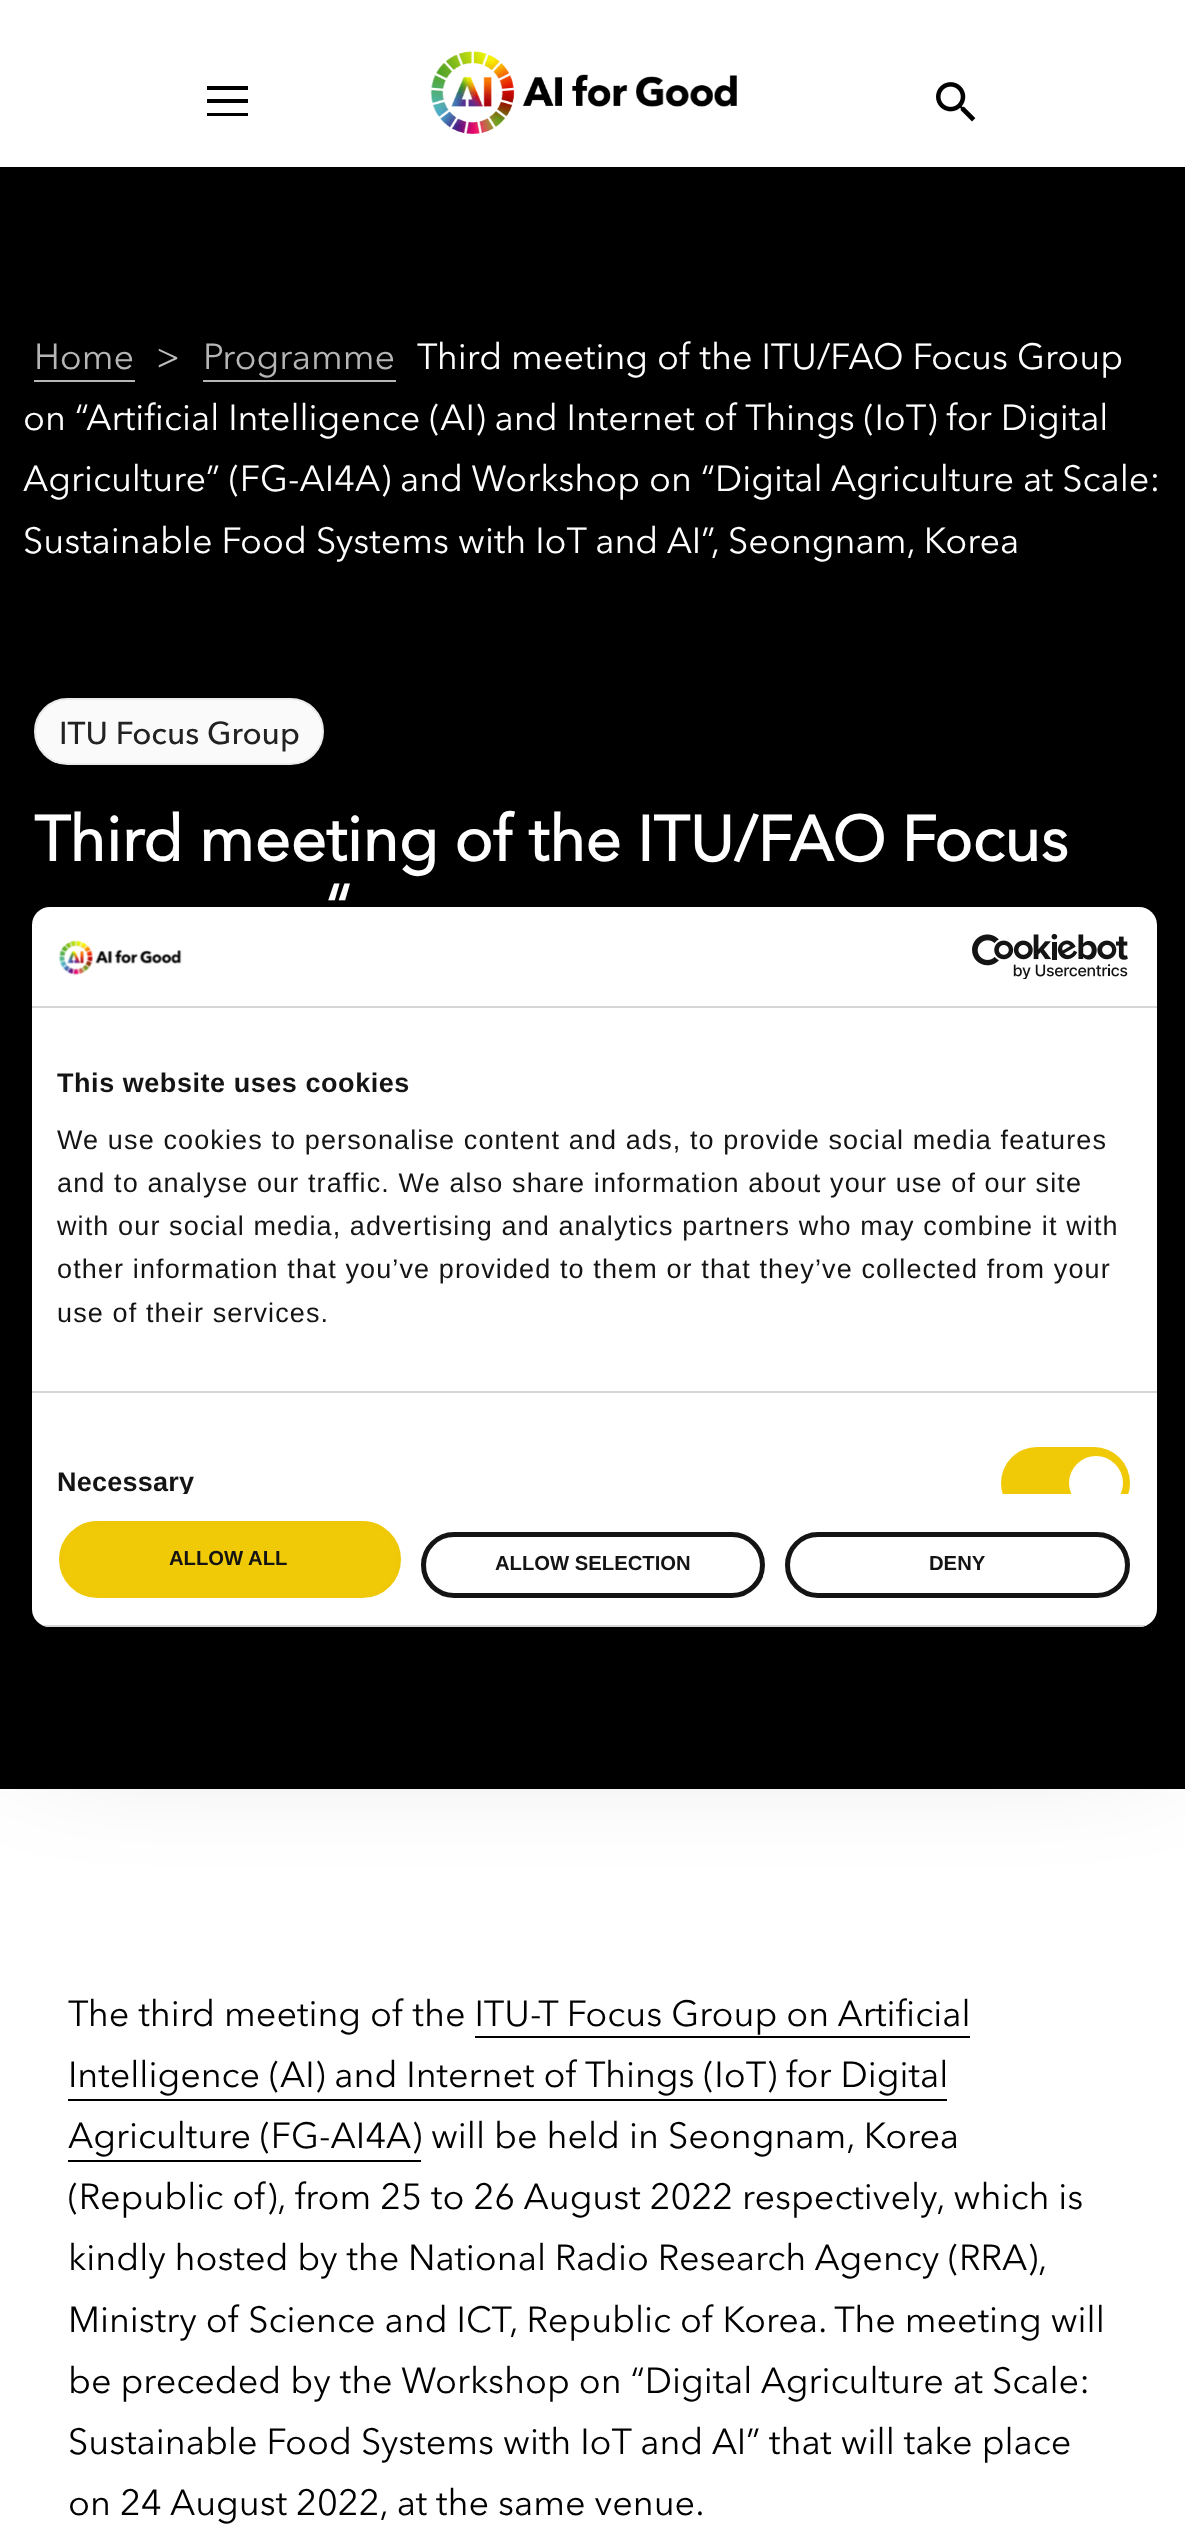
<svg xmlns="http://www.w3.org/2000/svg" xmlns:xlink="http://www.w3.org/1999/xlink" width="1185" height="2533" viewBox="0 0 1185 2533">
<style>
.cls-1{font:36px 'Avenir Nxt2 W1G';fill:#b6b6b6}
.cls-2{font:36px 'Avenir Nxt2 W1G';fill:#bebebe}
.cls-3{font:36px 'Avenir Nxt2 W1G';fill:#ffffff}
.cls-4{font:500 31.5px 'Avenir Nxt2 W1G';fill:#222222}
.cls-5{font:bold 63px 'Avenir Nxt2 W1G';fill:#ffffff}
.cls-6{font:36px 'Avenir Nxt2 W1G';fill:#000000}
.cls-7{font:bold 27px Liberation Sans;letter-spacing:0.55px;fill:#141414}
.cls-8{font:27px Liberation Sans;letter-spacing:1.12px;fill:#141414}
.cls-9{font:bold 27px Liberation Sans;letter-spacing:0.25px;fill:#141414}
.cls-10{font:bold 20.25px Liberation Sans;fill:#141414}
</style>
<defs>
<clipPath id="clip1"><rect x="32" y="1008" width="1125" height="486"/></clipPath>
<clipPath id="clip2"><rect x="32" y="907" width="1125" height="720" rx="18"/></clipPath>
</defs>
<rect width="100%" height="100%" fill="#ffffff"/>
<rect fill="#000000" x="207" y="86" width="41" height="4"/>
<rect fill="#000000" x="207" y="99" width="41" height="4"/>
<rect fill="#000000" x="207" y="113" width="41" height="3"/>
<image xlink:href="image0.png" x="430" y="51" width="307" height="83"/>
<image xlink:href="image1.png" x="936" y="82" width="40" height="40"/>
<rect fill="#000000" x="0" y="167" width="1185" height="1622"/>
<rect fill="#b6b6b6" x="34" y="380" width="101" height="2"/>
<rect fill="#b6b6b6" x="203" y="380" width="193" height="2"/>
<rect fill="#fafafa" stroke="#e9eaeb" stroke-width="2" x="35" y="699" width="288" height="65" rx="32.5"/>
<rect fill="#000000" x="475" y="2036" width="495" height="2"/>
<rect fill="#000000" x="68" y="2099" width="879" height="2"/>
<rect fill="#000000" x="68" y="2160" width="353" height="2"/>
<rect fill="#000000" fill-opacity="0.3" filter="blur(76.5px)" x="32" y="979" width="1125" height="720" rx="18"/>
<rect fill="#ffffff" x="32" y="907" width="1125" height="720" rx="18"/>
<rect fill="#d6d6d6" x="32" y="1006" width="1125" height="2"/>
<image xlink:href="image2.png" x="58" y="940" width="124" height="36"/>
<image xlink:href="image3.png" x="972" y="934" width="156" height="45"/>
<rect fill="#d6d6d6" x="32" y="1391" width="1125" height="2"/>
<g clip-path="url(#clip1)">
<rect fill="#f1ca07" x="1001" y="1447" width="129" height="72" rx="36"/>
<circle fill="#ffffff" cx="1096" cy="1483" r="27"/>
</g>
<g clip-path="url(#clip2)">
<rect fill="#d6d6d6" x="42" y="1625" width="1105" height="2"/>
</g>
<rect fill="#f1ca07" stroke="#efc907" stroke-width="5" x="61.5" y="1523.5" width="337" height="72" rx="36"/>
<rect fill="none" stroke="#141414" stroke-width="5" x="423.5" y="1534.5" width="339" height="61" rx="30.5"/>
<rect fill="none" stroke="#141414" stroke-width="5" x="787.5" y="1534.5" width="340" height="61" rx="30.5"/>
<text class="cls-1" x="34" y="369">Home</text>
<text class="cls-2" x="156" y="369">&gt;</text>
<text class="cls-1" x="203" y="369">Programme</text>
<text class="cls-3" x="417" y="369">Third meeting of the ITU/FAO Focus Group</text>
<text class="cls-3"><tspan x="23" y="430">on “Artificial Intelligence (AI) and Internet of Things (IoT) for Digital</tspan><tspan x="23" y="491">Agriculture” (FG-AI4A) and Workshop on “Digital Agriculture at Scale:</tspan><tspan x="23" y="553">Sustainable Food Systems with IoT and AI”, Seongnam, Korea</tspan></text>
<text class="cls-4" x="59" y="744">ITU Focus Group</text>
<text class="cls-5" x="34" y="861">Third meeting of the ITU/FAO Focus</text>
<text class="cls-5" x="326" y="930">“</text>
<text class="cls-6"><tspan x="68" y="2026">The third meeting of the ITU-T Focus Group on Artificial</tspan><tspan x="68" y="2087">Intelligence (AI) and Internet of Things (IoT) for Digital</tspan><tspan x="68" y="2148">Agriculture (FG-AI4A) will be held in Seongnam, Korea</tspan><tspan x="68" y="2209">(Republic of), from 25 to 26 August 2022 respectively, which is</tspan><tspan x="68" y="2270" word-spacing="-0.25">kindly hosted by the National Radio Research Agency (RRA),</tspan><tspan x="68" y="2332">Ministry of Science and ICT, Republic of Korea. The meeting will</tspan><tspan x="68" y="2393">be preceded by the Workshop on “Digital Agriculture at Scale:</tspan><tspan x="68" y="2454">Sustainable Food Systems with IoT and AI” that will take place</tspan><tspan x="68" y="2515">on 24 August 2022, at the same venue.</tspan></text>
<text class="cls-7" x="57" y="1092">This website uses cookies</text>
<text class="cls-8"><tspan x="57" y="1149">We use cookies to personalise content and ads, to provide social media features</tspan><tspan x="57" y="1192">and to analyse our traffic. We also share information about your use of our site</tspan><tspan x="57" y="1235">with our social media, advertising and analytics partners who may combine it with</tspan><tspan x="57" y="1278">other information that you’ve provided to them or that they’ve collected from your</tspan><tspan x="57" y="1322">use of their services.</tspan></text>
<g clip-path="url(#clip1)">
<text class="cls-9" x="57" y="1491">Necessary</text>
</g>
<text class="cls-10" x="169" y="1565">ALLOW ALL</text>
<text class="cls-10" x="495" y="1570">ALLOW SELECTION</text>
<text class="cls-10" x="929" y="1570">DENY</text>
</svg>
